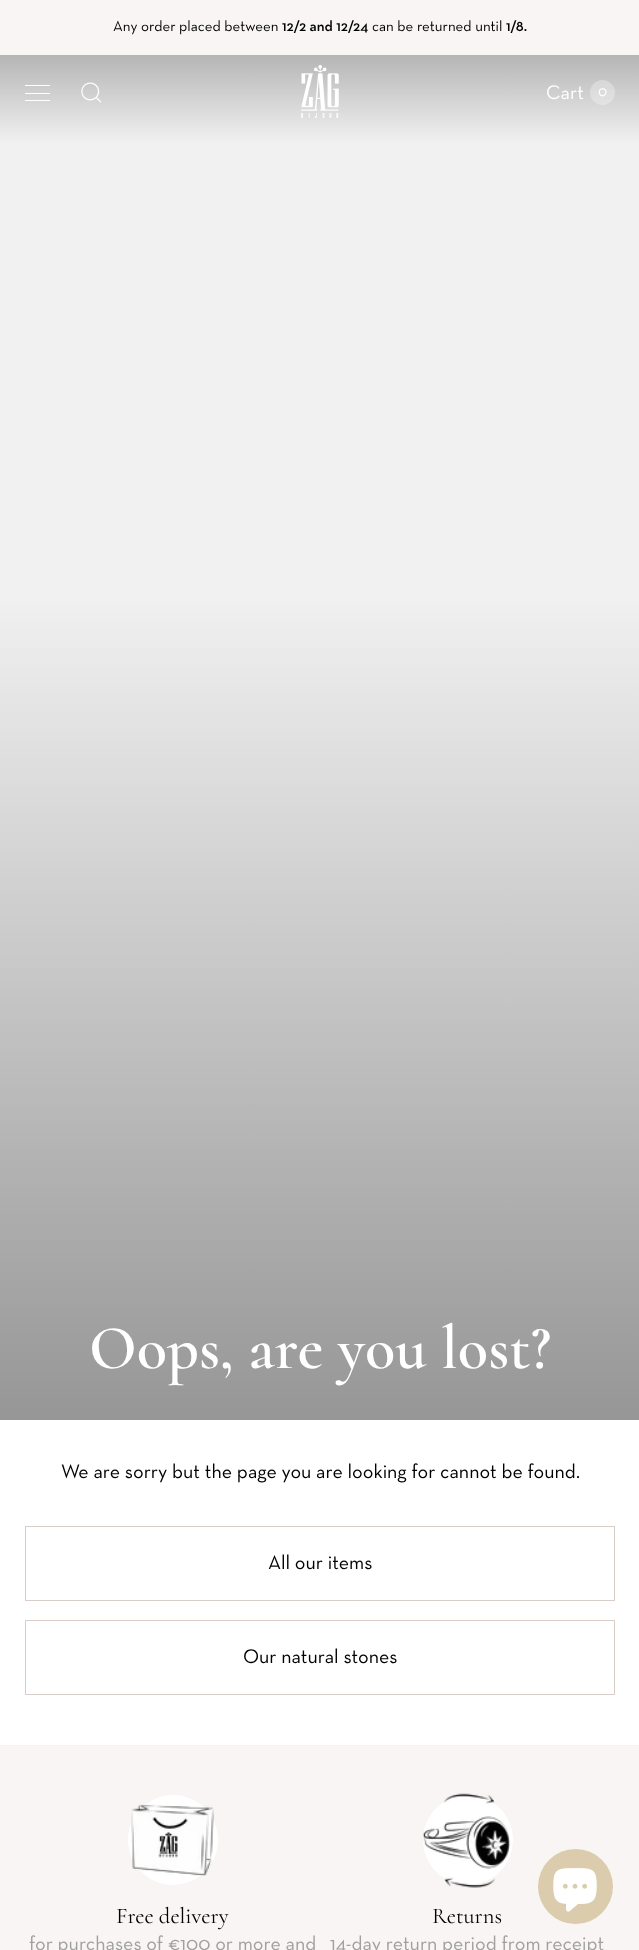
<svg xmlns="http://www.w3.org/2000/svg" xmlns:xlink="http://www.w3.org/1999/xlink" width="639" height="1950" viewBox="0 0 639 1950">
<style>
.cls-1{font:15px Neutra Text;fill:#000000}
.cls-2{font:600 15px Neutra Text;fill:#000000}
.cls-3{font:20px Neutra Text;fill:#ffffff}
.cls-4{font:15px Neutra Text;fill:#ffffff}
.cls-5{font:600 62.5px Cormorant;fill:#ffffff}
.cls-6{font:20px Neutra Text;fill:#000000}
.cls-7{font:22.5px Cormorant;fill:#000000}
.cls-8{font:20px Neutra Text;fill:#a0a0a0}
</style>
<defs>
<linearGradient id="g1" gradientUnits="userSpaceOnUse" x1="320" y1="143" x2="320" y2="55"><stop offset="0" stop-color="#f1f1f1"/><stop offset="1" stop-color="#b5b5b5"/></linearGradient>
<linearGradient id="g2" gradientUnits="userSpaceOnUse" x1="320" y1="7.2" x2="320" y2="1468"><stop offset="0.4" stop-color="#f1f1f1"/><stop offset="1" stop-color="#919191"/></linearGradient>
</defs>
<rect width="100%" height="100%" fill="#ffffff"/>
<rect fill="#f8f5f4" x="0" y="0" width="639" height="55"/>
<rect fill="url(#g1)" x="0" y="55" width="639" height="88"/>
<rect fill="#ffffff" x="25" y="93" width="25" height="1"/>
<rect fill="#ffffff" x="25" y="85" width="25" height="1"/>
<rect fill="#ffffff" x="25" y="100" width="25" height="1"/>
<image xlink:href="image0.png" x="81" y="82" width="21" height="21"/>
<image xlink:href="image1.png" x="301" y="65" width="38" height="53"/>
<circle fill="#ffffff" fill-opacity="0.3" cx="602.5" cy="92.5" r="12.5"/>
<rect fill="url(#g2)" x="0" y="143" width="639" height="1277"/>
<rect fill="none" stroke="#dacec8" x="25.5" y="1526.5" width="589" height="74"/>
<rect fill="none" stroke="#dacec8" x="25.5" y="1620.5" width="589" height="74"/>
<rect fill="#f8f5f4" x="0" y="1746" width="639" height="204"/>
<rect fill="#f3f3f3" x="0" y="1745" width="639" height="1"/>
<circle fill="#ffffff" cx="173" cy="1840" r="45"/>
<image xlink:href="image2.png" x="131" y="1804" width="83" height="72"/>
<circle fill="#ffffff" cx="468" cy="1840" r="45"/>
<image xlink:href="image3.png" x="423" y="1793" width="88" height="95"/>
<circle fill="#daccad" cx="575.5" cy="1886.5" r="37.5"/>
<image xlink:href="image4.png" x="553" y="1868" width="44" height="44"/>
<text class="cls-1" x="113" y="31">Any order placed between</text>
<text class="cls-2" x="282" y="31">12/2 and 12/24</text>
<text class="cls-1" x="372" y="31">can be returned until</text>
<text class="cls-2" x="506" y="31">1/8.</text>
<text class="cls-3" x="546" y="99">Cart</text>
<text class="cls-4" x="598" y="96">0</text>
<text class="cls-5" x="89" y="1368">Oops, are you lost?</text>
<text class="cls-6" x="61" y="1478">We are sorry but the page you are looking for cannot be found.</text>
<text class="cls-6" x="268" y="1569">All our items</text>
<text class="cls-6" x="243" y="1663">Our natural stones</text>
<text class="cls-7" x="116" y="1923">Free delivery</text>
<text class="cls-8" x="29" y="1950">for purchases of €100 or more and</text>
<text class="cls-7" x="432" y="1923">Returns</text>
<text class="cls-8" x="330" y="1950">14-day return period from receipt</text>
</svg>
